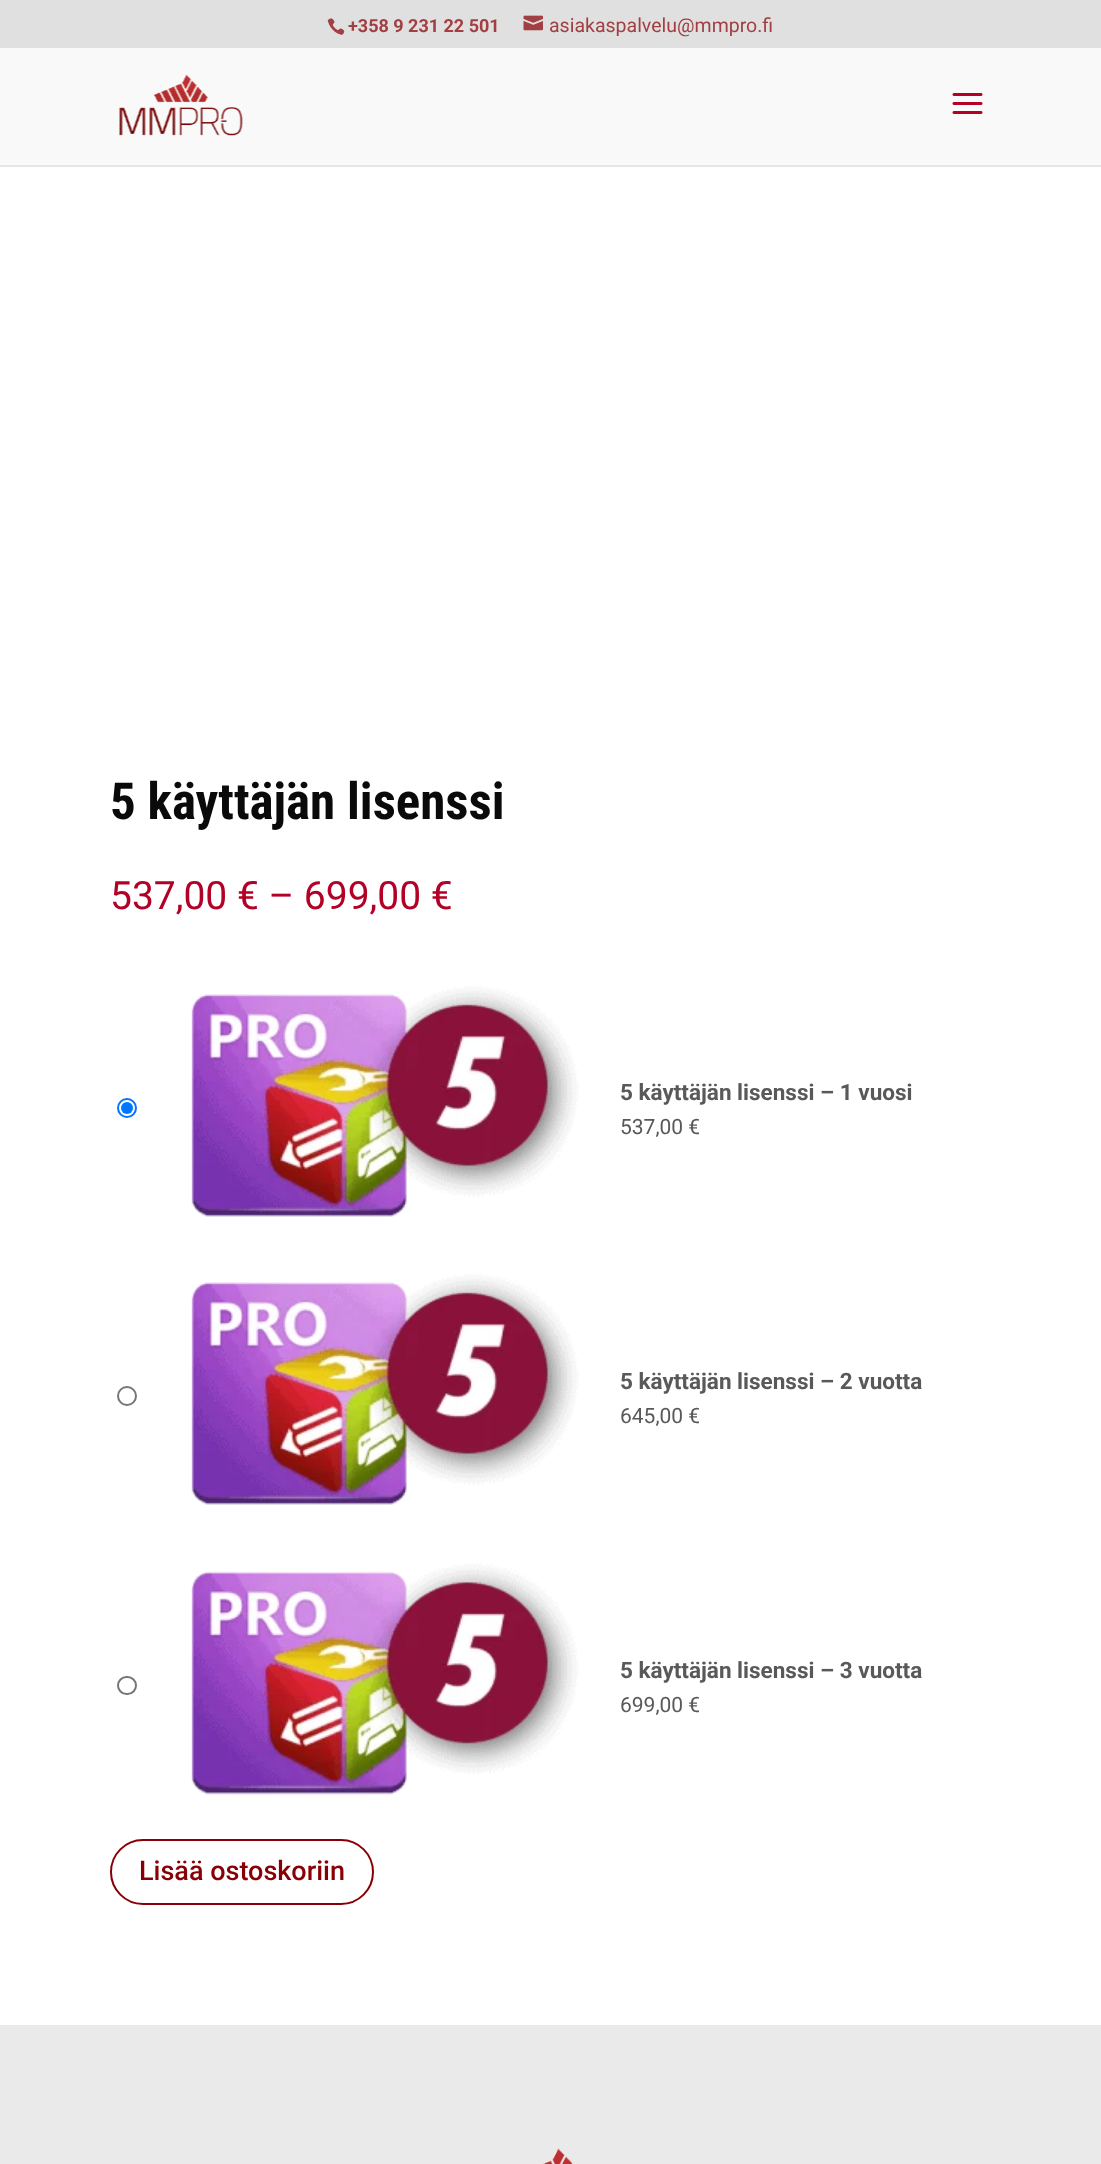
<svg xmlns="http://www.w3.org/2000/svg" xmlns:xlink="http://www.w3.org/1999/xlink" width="1101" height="2164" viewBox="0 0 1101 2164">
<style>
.cls-1{font:bold 18px Roboto;fill:#a13f42}
.cls-2{font:19.5px Roboto;fill:#a13f42}
.cls-3{font:bold 51px Roboto Condensed;fill:#0a0a0a}
.cls-4{font:39px Roboto;fill:#b20026}
.cls-5{font:bold 22.5px Roboto;fill:#595959}
.cls-6{font:21px Roboto;fill:#595959}
.cls-7{font:500 27px Roboto;fill:#880005}
</style>
<rect width="100%" height="100%" fill="#ffffff"/>
<rect fill="#e0e0e0" x="0" y="0" width="1101" height="48"/>
<image xlink:href="image0.png" x="327" y="18" width="18" height="17"/>
<image xlink:href="image1.png" x="523" y="15" width="20" height="16"/>
<rect fill="#e6e6e6" x="0" y="165" width="1101" height="2"/>
<rect fill="#f9f9f9" x="0" y="48" width="1101" height="117"/>
<image xlink:href="image2.png" x="119" y="74" width="124" height="62"/>
<image xlink:href="image3.png" x="952" y="93" width="31" height="21"/>
<circle fill="none" stroke="#0075ff" stroke-width="2" cx="127" cy="1108" r="9"/>
<circle fill="#0075ff" cx="127" cy="1108" r="6"/>
<image xlink:href="image4.png" x="191" y="986" width="388" height="231"/>
<circle fill="none" stroke="#767676" stroke-width="2" cx="127" cy="1396" r="9"/>
<image xlink:href="image4.png" x="191" y="1274" width="388" height="231"/>
<rect fill="none" stroke="#767676" stroke-width="2" x="118" y="1677" width="18" height="17" rx="8.5"/>
<image xlink:href="image5.png" x="191" y="1563" width="388" height="232"/>
<rect fill="none" stroke="#880005" stroke-width="2" x="111" y="1840" width="262" height="64" rx="32"/>
<rect fill="#eaeaea" x="0" y="2025" width="1101" height="139"/>
<image xlink:href="image6.png" x="543" y="2148" width="30" height="16"/>
<text class="cls-1" x="348" y="32">+358 9 231 22 501</text>
<text class="cls-2" x="549" y="32">asiakaspalvelu@mmpro.fi</text>
<text class="cls-3" x="110" y="819">5 käyttäjän lisenssi</text>
<text class="cls-4" x="110" y="909">537,00 € – 699,00 €</text>
<text class="cls-5" x="620" y="1100">5 käyttäjän lisenssi – 1 vuosi</text>
<text class="cls-6" x="620" y="1134">537,00 €</text>
<text class="cls-5" x="620" y="1389">5 käyttäjän lisenssi – 2 vuotta</text>
<text class="cls-6" x="620" y="1423">645,00 €</text>
<text class="cls-5" x="620" y="1678">5 käyttäjän lisenssi – 3 vuotta</text>
<text class="cls-6" x="620" y="1712">699,00 €</text>
<text class="cls-7" x="139" y="1880">Lisää ostoskoriin</text>
</svg>
